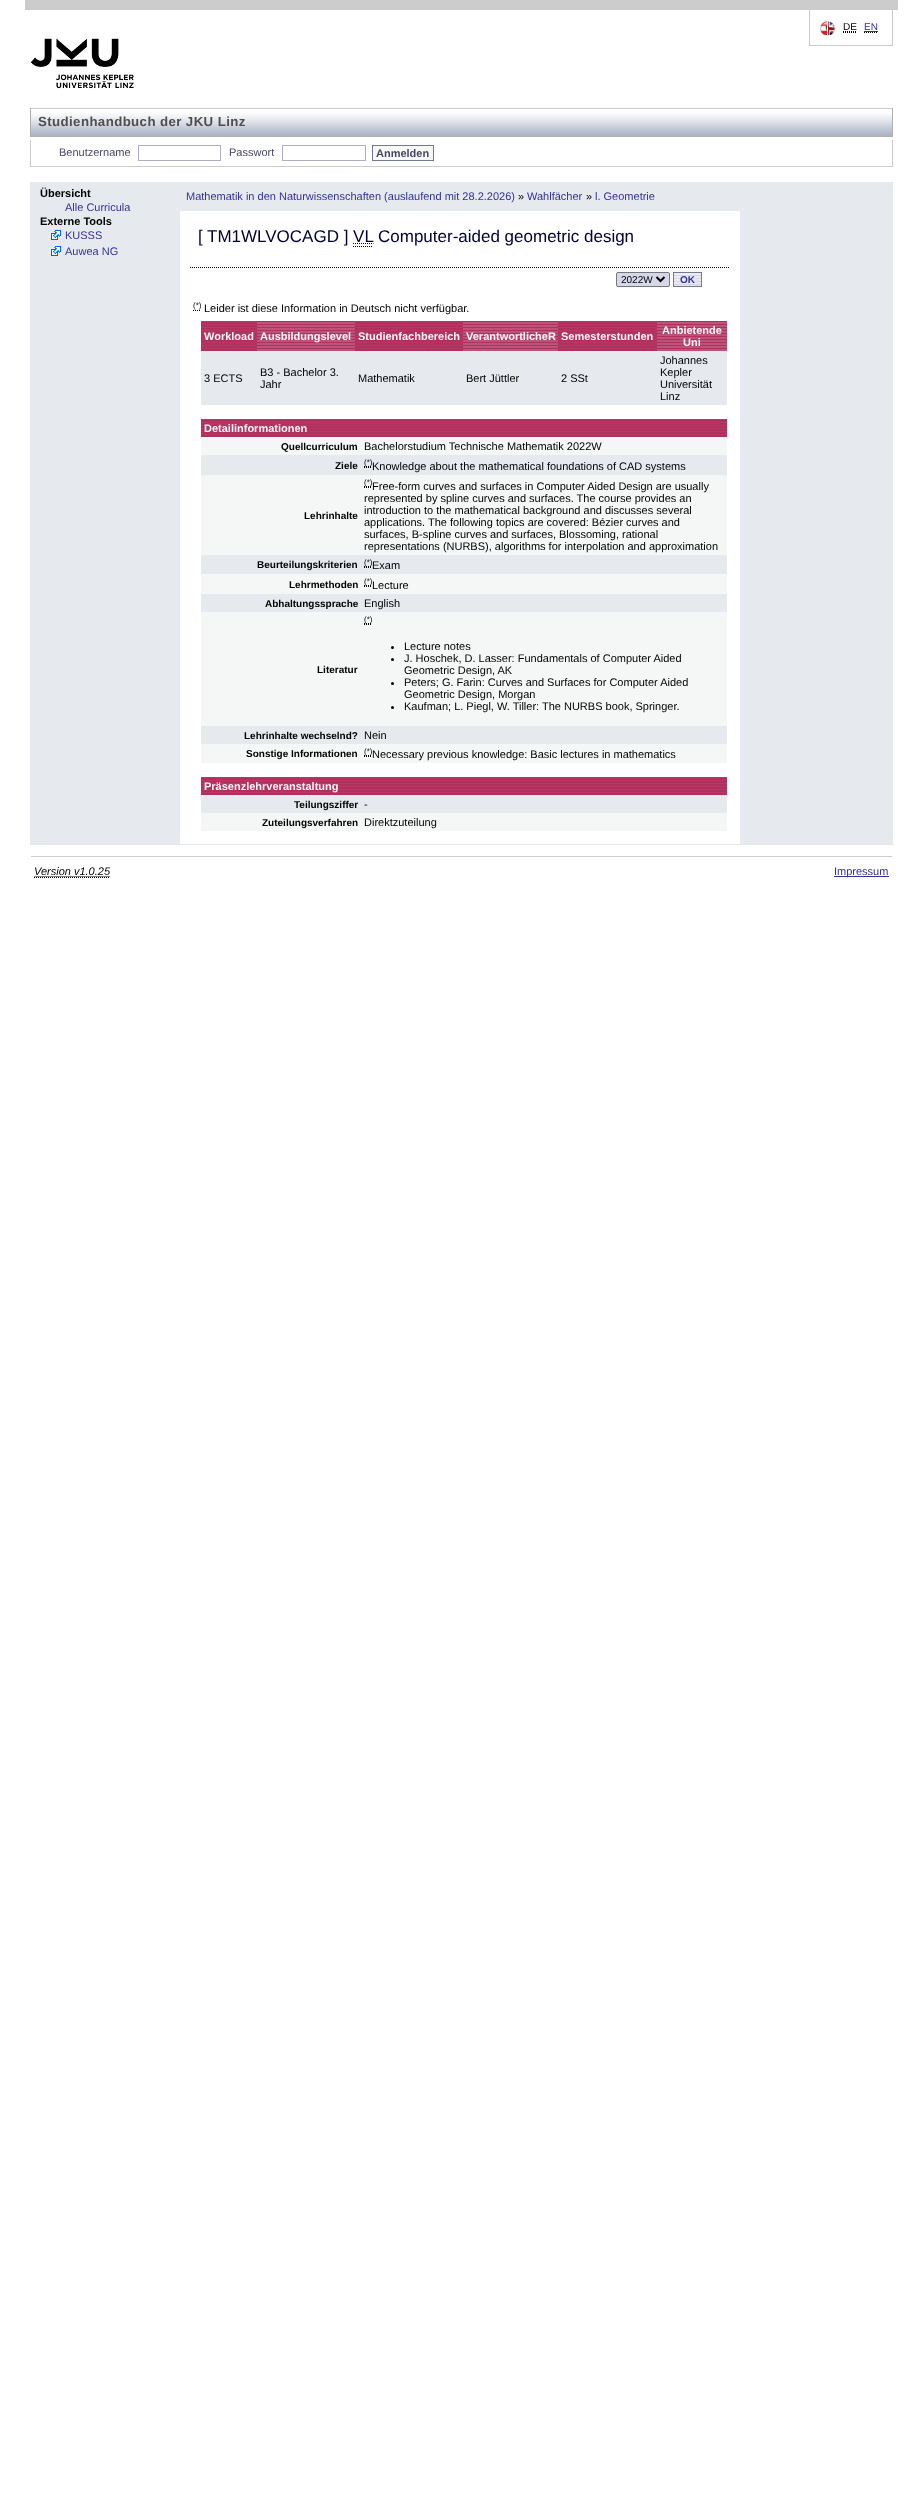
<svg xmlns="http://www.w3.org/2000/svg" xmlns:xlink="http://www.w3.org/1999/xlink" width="923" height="2502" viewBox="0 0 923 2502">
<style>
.cls-1{font:10px Liberation Sans;fill:#000000}
.cls-2{font:10px Liberation Sans;fill:#333298}
.cls-3{font:bold 13.25px Liberation Sans;letter-spacing:0.4px;fill:#4e4e4e}
.cls-4{font:11px Liberation Sans;fill:#474766}
.cls-5{font:bold 11px Liberation Sans;fill:#474766}
.cls-6{font:bold 11px Liberation Sans;fill:#000000}
.cls-7{font:11px Liberation Sans;fill:#333298}
.cls-8{font:11px Liberation Sans;fill:#000000}
.cls-9{font:17px Liberation Sans;fill:#000033}
.cls-10{font:bold 10px Liberation Sans;fill:#333298}
.cls-11{font:8px Liberation Sans;fill:#000000}
.cls-12{font:bold 11px Liberation Sans;fill:#f7f7f7}
.cls-13{font:bold 10px Liberation Sans;fill:#000000}
.cls-14{font:italic 11px Liberation Sans;fill:#000000}
</style>
<rect width="100%" height="100%" fill="#ffffff"/>
<rect fill="#cccccc" x="25" y="0" width="873" height="10"/>
<rect fill="#cccccc" x="892" y="10" width="1" height="36"/>
<rect fill="#cccccc" x="809" y="45" width="84" height="1"/>
<rect fill="#cccccc" x="809" y="10" width="1" height="36"/>
<image xlink:href="image0.png" x="820" y="21" width="15" height="14"/>
<path fill="none" stroke="#000000" stroke-dasharray="1 1" d="M843 32.5H856M843 31.5H856.5"/>
<path fill="none" stroke="#000000" stroke-dasharray="1 1" d="M864 32.5H878"/>
<rect fill="#333298" x="864" y="31" width="14" height="1"/>
<image xlink:href="image1.png" x="30" y="38" width="104" height="51"/>
<image xlink:href="image2.png" x="31" y="108" width="861" height="28"/>
<rect fill="#aeaeae" x="892" y="108" width="1" height="29"/>
<rect fill="#aeaeae" x="30" y="136" width="863" height="1"/>
<rect fill="#aeaeae" x="30" y="108" width="1" height="29"/>
<rect fill="#cccccc" x="892" y="140" width="1" height="27"/>
<rect fill="#cccccc" x="30" y="166" width="863" height="1"/>
<rect fill="#cccccc" x="30" y="140" width="1" height="27"/>
<rect fill="none" stroke="#b0aec3" x="138.5" y="145.5" width="82" height="15"/>
<rect fill="none" stroke="#b0aec3" x="282.5" y="145.5" width="83" height="15"/>
<rect fill="#f7f7f7" stroke="#747895" x="372.5" y="145.5" width="61" height="15"/>
<rect fill="#e6e9ee" x="30" y="182" width="150" height="662"/>
<image xlink:href="image3.png" x="51" y="230" width="10" height="10"/>
<image xlink:href="image3.png" x="51" y="246" width="10" height="10"/>
<rect fill="#e6e9ee" x="180" y="182" width="713" height="29"/>
<rect fill="#e6e9ee" x="740" y="210" width="1" height="635"/>
<path fill="none" stroke="#000000" stroke-dasharray="1 1" d="M190 267.5H730"/>
<path fill="none" stroke="#000033" stroke-dasharray="1 1" d="M353 243.5H373.5"/>
<path fill="none" stroke="#000000" stroke-dasharray="1 1" d="M353 246.5H373"/>
<rect fill="#d6d7e9" stroke="#767676" x="616.5" y="272.5" width="53" height="14" rx="1.5"/>
<path fill="none" stroke="#000000" stroke-width="2" d="M656.5 277L660.5 281L664.5 277"/>
<image xlink:href="image4.png" x="674" y="273" width="27" height="13"/>
<rect fill="none" stroke="#747895" x="673.5" y="272.5" width="28" height="14"/>
<path fill="none" stroke="#000000" stroke-dasharray="1 1" d="M193 310.5H201"/>
<image xlink:href="image5.png" x="201" y="321" width="56" height="30"/>
<image xlink:href="image6.png" x="257" y="321" width="98" height="30"/>
<image xlink:href="image7.png" x="355" y="321" width="108" height="30"/>
<image xlink:href="image8.png" x="463" y="321" width="95" height="30"/>
<image xlink:href="image9.png" x="558" y="321" width="99" height="30"/>
<image xlink:href="image10.png" x="657" y="321" width="70" height="30"/>
<rect fill="#e6e9ed" x="201" y="351" width="526" height="54"/>
<image xlink:href="image11.png" x="201" y="419" width="526" height="18"/>
<rect fill="#f5f7f7" x="201" y="437" width="526" height="18"/>
<rect fill="#e6e9ed" x="201" y="455" width="526" height="20"/>
<path fill="none" stroke="#000000" stroke-dasharray="1 1" d="M364 467.5H372M364 466.5H372"/>
<rect fill="#f5f7f7" x="201" y="475" width="526" height="80"/>
<path fill="none" stroke="#000000" stroke-dasharray="1 1" d="M364 487.5H372M364 486.5H372"/>
<rect fill="#e6e9ed" x="201" y="555" width="526" height="19"/>
<path fill="none" stroke="#000000" stroke-dasharray="1 1" d="M364 567.5H372M364 566.5H372"/>
<rect fill="#f5f7f7" x="201" y="574" width="526" height="20"/>
<path fill="none" stroke="#000000" stroke-dasharray="1 1" d="M364 586.5H372M364 585.5H372"/>
<rect fill="#e6e9ed" x="201" y="594" width="526" height="18"/>
<rect fill="#f5f7f7" x="201" y="612" width="526" height="114"/>
<path fill="none" stroke="#000000" stroke-dasharray="1 1" d="M364 624.5H372M364 623.5H372"/>
<circle fill="#000000" cx="392.5" cy="647.5" r="1.5"/>
<circle fill="#000000" cx="392.5" cy="659.5" r="1.5"/>
<circle fill="#000000" cx="392.5" cy="683.5" r="1.5"/>
<circle fill="#000000" cx="392.5" cy="707.5" r="1.5"/>
<rect fill="#e6e9ed" x="201" y="726" width="526" height="18"/>
<rect fill="#f5f7f7" x="201" y="744" width="526" height="19"/>
<path fill="none" stroke="#000000" stroke-dasharray="1 1" d="M364 756.5H372M364 755.5H372"/>
<image xlink:href="image11.png" x="201" y="777" width="526" height="18"/>
<rect fill="#e6e9ed" x="201" y="795" width="526" height="18"/>
<rect fill="#f5f7f7" x="201" y="813" width="526" height="18"/>
<rect fill="#e6e9ee" x="741" y="211" width="152" height="633"/>
<rect fill="#e6e9ee" x="30" y="844" width="864" height="1"/>
<rect fill="#cccccc" x="31" y="856" width="861" height="1"/>
<path fill="none" stroke="#000000" stroke-dasharray="1 1" d="M34 877.5H110"/>
<path fill="none" stroke="#000000" stroke-dasharray="1 1" d="M34.5 876.5H110.5"/>
<rect fill="#333298" x="834" y="876" width="55" height="1"/>
<text class="cls-1" x="843" y="30">DE</text>
<text class="cls-2" x="864" y="30">EN</text>
<text class="cls-3" x="38" y="126">Studienhandbuch der JKU Linz</text>
<text class="cls-4" x="59" y="156">Benutzername</text>
<text class="cls-4" x="229" y="156">Passwort</text>
<text class="cls-5" x="376" y="157">Anmelden</text>
<text class="cls-6" x="40" y="197">Übersicht</text>
<text class="cls-7" x="65" y="211">Alle Curricula</text>
<text class="cls-6" x="40" y="225">Externe Tools</text>
<text class="cls-7"><tspan x="65" y="239">KUSSS</tspan><tspan x="65" y="255">Auwea NG</tspan></text>
<text class="cls-7" x="186" y="200">Mathematik in den Naturwissenschaften (auslaufend mit 28.2.2026)</text>
<text class="cls-8" x="518" y="200">»</text>
<text class="cls-7" x="527" y="200">Wahlfächer</text>
<text class="cls-8" x="586" y="200">»</text>
<text class="cls-7" x="595" y="200">l. Geometrie</text>
<text class="cls-9" x="198" y="242">[</text>
<text class="cls-9" x="207" y="242">TM1WLVOCAGD ] VL</text>
<text class="cls-9" x="378" y="242">Computer-aided geometric design</text>
<text class="cls-1" x="621" y="283">2022W</text>
<text class="cls-10" x="680" y="283">OK</text>
<text class="cls-11" x="193" y="308">(*)</text>
<text class="cls-8" x="204" y="312">Leider ist diese Information in Deutsch nicht verfügbar.</text>
<text class="cls-12" x="204" y="340">Workload</text>
<text class="cls-12" x="260" y="340">Ausbildungslevel</text>
<text class="cls-12" x="358" y="340">Studienfachbereich</text>
<text class="cls-12" x="466" y="340">VerantwortlicheR</text>
<text class="cls-12" x="561" y="340">Semesterstunden</text>
<text class="cls-12" x="662" y="334">Anbietende</text>
<text class="cls-12" x="683" y="346">Uni</text>
<text class="cls-8" x="204" y="382">3 ECTS</text>
<text class="cls-8"><tspan x="260" y="376">B3 - Bachelor 3.</tspan><tspan x="260" y="388">Jahr</tspan></text>
<text class="cls-8" x="358" y="382">Mathematik</text>
<text class="cls-8" x="466" y="382">Bert Jüttler</text>
<text class="cls-8" x="561" y="382">2 SSt</text>
<text class="cls-8"><tspan x="660" y="364">Johannes</tspan><tspan x="660" y="376">Kepler</tspan><tspan x="660" y="388">Universität</tspan><tspan x="660" y="400">Linz</tspan></text>
<text class="cls-12" x="204" y="432">Detailinformationen</text>
<text class="cls-13" x="281" y="450">Quellcurriculum</text>
<text class="cls-8" x="364" y="450">Bachelorstudium Technische Mathematik 2022W</text>
<text class="cls-13" x="335" y="469">Ziele</text>
<text class="cls-11" x="364" y="465">(*)</text>
<text class="cls-8" x="372" y="470">Knowledge about the mathematical foundations of CAD systems</text>
<text class="cls-13" x="304" y="519">Lehrinhalte</text>
<text class="cls-11" x="364" y="485">(*)</text>
<text class="cls-8" x="372" y="490">Free-form curves and surfaces in Computer Aided Design are usually</text>
<text class="cls-8"><tspan x="364" y="502">represented by spline curves and surfaces. The course provides an</tspan><tspan x="364" y="514">introduction to the mathematical background and discusses several</tspan><tspan x="364" y="526">applications. The following topics are covered: Bézier curves and</tspan><tspan x="364" y="538">surfaces, B-spline curves and surfaces, Blossoming, rational</tspan><tspan x="364" y="550">representations (NURBS), algorithms for interpolation and approximation</tspan></text>
<text class="cls-13" x="257" y="568">Beurteilungskriterien</text>
<text class="cls-11" x="364" y="565">(*)</text>
<text class="cls-8" x="372" y="569">Exam</text>
<text class="cls-13" x="289" y="588">Lehrmethoden</text>
<text class="cls-11" x="364" y="584">(*)</text>
<text class="cls-8" x="372" y="589">Lecture</text>
<text class="cls-13" x="265" y="607">Abhaltungssprache</text>
<text class="cls-8" x="364" y="607">English</text>
<text class="cls-13" x="317" y="673">Literatur</text>
<text class="cls-11" x="364" y="622">(*)</text>
<text class="cls-8"><tspan x="404" y="650">Lecture notes</tspan><tspan x="404" y="662">J. Hoschek, D. Lasser: Fundamentals of Computer Aided</tspan><tspan x="404" y="674">Geometric Design, AK</tspan><tspan x="404" y="686">Peters; G. Farin: Curves and Surfaces for Computer Aided</tspan><tspan x="404" y="698">Geometric Design, Morgan</tspan><tspan x="404" y="710">Kaufman; L. Piegl, W. Tiller: The NURBS book, Springer.</tspan></text>
<text class="cls-13" x="244" y="739">Lehrinhalte wechselnd?</text>
<text class="cls-8" x="364" y="739">Nein</text>
<text class="cls-13" x="246" y="757">Sonstige Informationen</text>
<text class="cls-11" x="364" y="754">(*)</text>
<text class="cls-8" x="372" y="758">Necessary previous knowledge: Basic lectures in mathematics</text>
<text class="cls-12" x="204" y="790">Präsenzlehrveranstaltung</text>
<text class="cls-13" x="294" y="808">Teilungsziffer</text>
<text class="cls-8" x="364" y="808">-</text>
<text class="cls-13" x="262" y="826">Zuteilungsverfahren</text>
<text class="cls-8" x="364" y="826">Direktzuteilung</text>
<text class="cls-14" x="34" y="875">Version v1.0.25</text>
<text class="cls-7" x="834" y="875">Impressum</text>
</svg>
